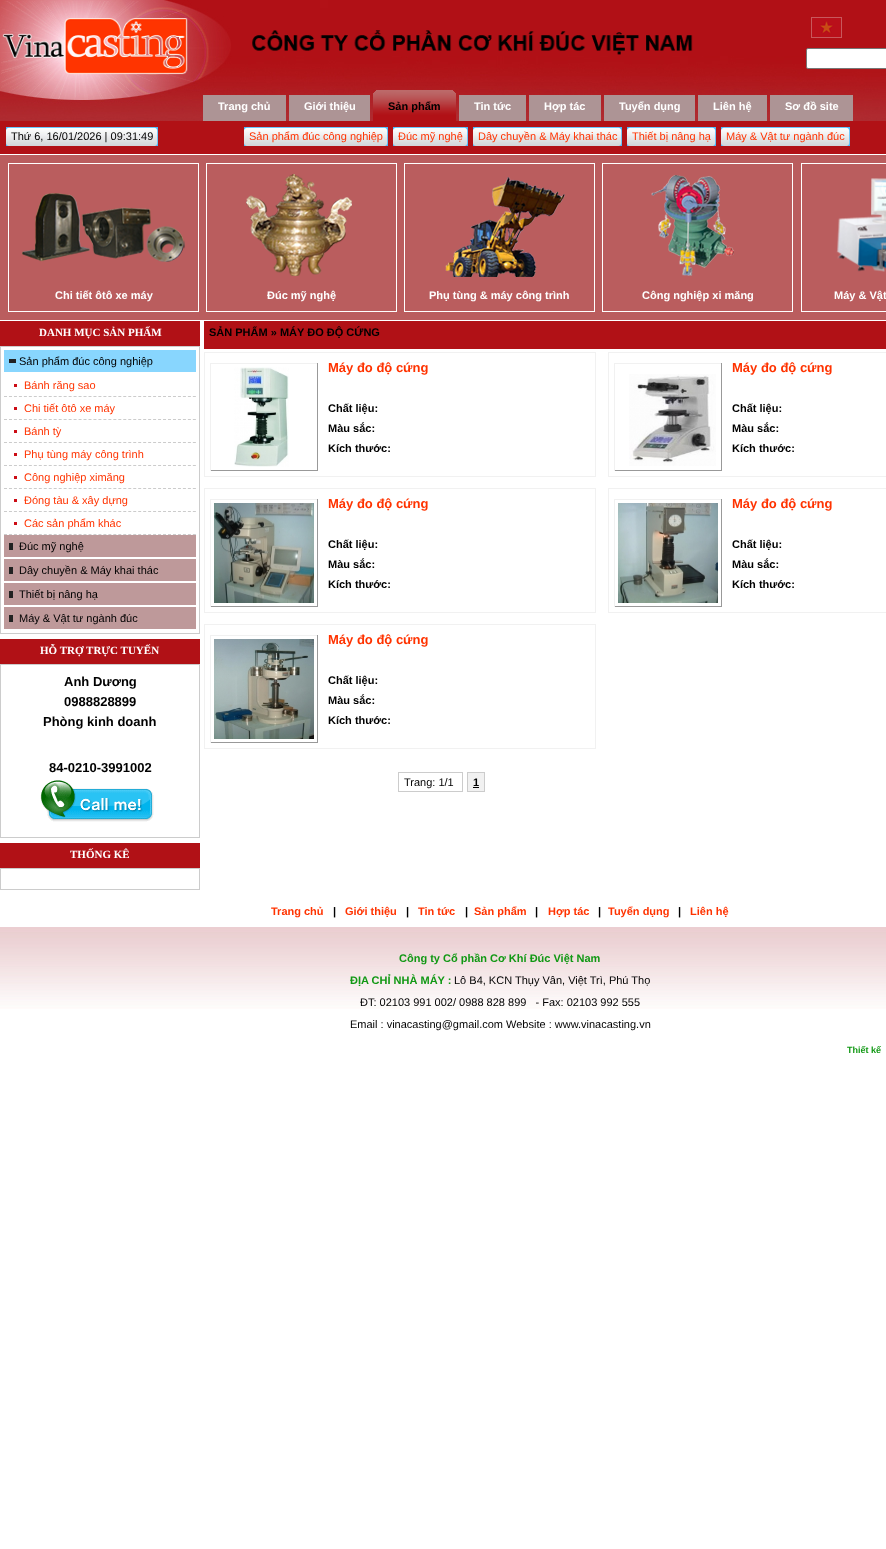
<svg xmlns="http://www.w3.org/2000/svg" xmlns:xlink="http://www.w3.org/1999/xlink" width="886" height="1549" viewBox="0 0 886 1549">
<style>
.cls-1{font:bold 11px Liberation Sans;fill:#ffffff}
.cls-2{font:bold 11px Liberation Sans;fill:#000000}
.cls-3{font:11px Liberation Sans;fill:#000000}
.cls-4{font:11px Liberation Sans;fill:#ff3300}
.cls-5{font:bold 11px Liberation Serif;fill:#ffffff}
.cls-6{font:bold 13px Liberation Sans;fill:#000000}
.cls-7{font:bold 13px Liberation Sans;fill:#ff3300}
.cls-8{font:bold 11px Liberation Sans;fill:#ff3300}
.cls-9{font:bold 11px Liberation Sans;fill:#119814}
.cls-10{font:bold 9px Liberation Sans;fill:#119814}
</style>
<rect width="100%" height="100%" fill="#ffffff"/>
<image xlink:href="image0.png" x="0" y="0" width="886" height="121"/>
<rect fill="#b11116" x="0" y="121" width="886" height="33"/>
<image xlink:href="image1.png" x="2" y="18" width="186" height="57"/>
<image xlink:href="image2.png" x="252" y="30" width="441" height="25"/>
<image xlink:href="image3.png" x="811" y="17" width="31" height="21"/>
<rect fill="#ffffff" stroke="#767676" x="806.5" y="48.5" width="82" height="20" rx="1.5"/>
<rect fill="#ad9495" x="203" y="95" width="83" height="26"/>
<rect fill="#ad9495" x="289" y="95" width="81" height="26"/>
<image xlink:href="image4.png" x="373" y="90" width="23" height="31"/>
<image xlink:href="image5.png" x="396" y="90" width="60" height="31"/>
<rect fill="#ad9495" x="459" y="95" width="67" height="26"/>
<rect fill="#ad9495" x="529" y="95" width="72" height="26"/>
<rect fill="#ad9495" x="604" y="95" width="91" height="26"/>
<rect fill="#ad9495" x="698" y="95" width="69" height="26"/>
<rect fill="#ad9495" x="770" y="95" width="83" height="26"/>
<image xlink:href="image6.png" x="6" y="127" width="146" height="19"/>
<image xlink:href="image7.png" x="152" y="127" width="6" height="19"/>
<image xlink:href="image8.png" x="244" y="127" width="138" height="19"/>
<image xlink:href="image9.png" x="382" y="127" width="6" height="19"/>
<image xlink:href="image10.png" x="393" y="127" width="69" height="19"/>
<image xlink:href="image9.png" x="462" y="127" width="6" height="19"/>
<image xlink:href="image11.png" x="473" y="127" width="143" height="19"/>
<image xlink:href="image7.png" x="616" y="127" width="6" height="19"/>
<image xlink:href="image12.png" x="627" y="127" width="83" height="19"/>
<image xlink:href="image9.png" x="710" y="127" width="6" height="19"/>
<image xlink:href="image13.png" x="721" y="127" width="123" height="19"/>
<image xlink:href="image9.png" x="844" y="127" width="6" height="19"/>
<rect fill="#ba5d5e" x="0" y="155" width="886" height="165"/>
<rect fill="none" stroke="#ffffff" x="8.5" y="163.5" width="190" height="148"/>
<image xlink:href="image14.png" x="22" y="193" width="163" height="69"/>
<rect fill="none" stroke="#ffffff" x="206.5" y="163.5" width="190" height="148"/>
<image xlink:href="image15.png" x="246" y="174" width="106" height="102"/>
<rect fill="none" stroke="#ffffff" x="404.5" y="163.5" width="190" height="148"/>
<image xlink:href="image16.png" x="445" y="177" width="120" height="100"/>
<rect fill="none" stroke="#ffffff" x="602.5" y="163.5" width="190" height="148"/>
<image xlink:href="image17.png" x="651" y="175" width="84" height="101"/>
<rect fill="none" stroke="#ffffff" x="801.5" y="163.5" width="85" height="148"/>
<image xlink:href="image18.png" x="836" y="178" width="50" height="94"/>
<rect fill="#b11116" x="0" y="321" width="200" height="25"/>
<rect fill="none" stroke="#cccccc" x="0.5" y="346.5" width="199" height="287"/>
<rect fill="#88d6fe" x="4" y="350" width="192" height="22"/>
<rect fill="#222222" x="9" y="359" width="7" height="4"/>
<rect fill="#cc0c15" x="14" y="384" width="3" height="3"/>
<path fill="none" stroke="#cccccc" stroke-dasharray="3 1.97" d="M4 396.5H196"/>
<rect fill="#cc0c15" x="14" y="407" width="3" height="3"/>
<path fill="none" stroke="#cccccc" stroke-dasharray="3 1.97" d="M4 419.5H196"/>
<rect fill="#cc0c15" x="14" y="430" width="3" height="3"/>
<path fill="none" stroke="#cccccc" stroke-dasharray="3 1.97" d="M4 442.5H196"/>
<rect fill="#cc0c15" x="14" y="453" width="3" height="3"/>
<path fill="none" stroke="#cccccc" stroke-dasharray="3 1.97" d="M4 465.5H196"/>
<rect fill="#cc0c15" x="14" y="476" width="3" height="3"/>
<path fill="none" stroke="#cccccc" stroke-dasharray="3 1.97" d="M4 488.5H196"/>
<rect fill="#cc0c15" x="14" y="499" width="3" height="3"/>
<path fill="none" stroke="#cccccc" stroke-dasharray="3 1.97" d="M4 511.5H196"/>
<rect fill="#cc0c15" x="14" y="522" width="3" height="3"/>
<path fill="none" stroke="#cccccc" stroke-dasharray="3 1.97" d="M4 534.5H196"/>
<rect fill="#be999a" x="4" y="535" width="192" height="22"/>
<rect fill="#222222" x="9" y="543" width="4" height="7"/>
<rect fill="#be999a" x="4" y="559" width="192" height="22"/>
<rect fill="#222222" x="9" y="567" width="4" height="7"/>
<rect fill="#be999a" x="4" y="583" width="192" height="22"/>
<rect fill="#222222" x="9" y="591" width="4" height="7"/>
<rect fill="#be999a" x="4" y="607" width="192" height="22"/>
<rect fill="#222222" x="9" y="615" width="4" height="7"/>
<rect fill="#b11116" x="0" y="639" width="200" height="25"/>
<rect fill="none" stroke="#cccccc" x="0.5" y="664.5" width="199" height="173"/>
<image xlink:href="image19.png" x="40" y="780" width="114" height="42"/>
<rect fill="#b11116" x="0" y="843" width="200" height="25"/>
<rect fill="none" stroke="#cccccc" x="0.5" y="868.5" width="199" height="21"/>
<rect fill="#b11116" x="204" y="321" width="682" height="28"/>
<rect fill="none" stroke="#f1f1f1" x="204.5" y="352.5" width="391" height="124"/>
<rect fill="#f1f1f1" x="210" y="363" width="108" height="1"/>
<rect fill="#999999" x="317" y="363" width="1" height="108"/>
<rect fill="#999999" x="210" y="470" width="108" height="1"/>
<rect fill="#f1f1f1" x="210" y="363" width="1" height="108"/>
<image xlink:href="image20.png" x="234" y="367" width="55" height="100"/>
<rect fill="none" stroke="#f1f1f1" x="608.5" y="352.5" width="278" height="124"/>
<rect fill="#f1f1f1" x="614" y="363" width="108" height="1"/>
<rect fill="#999999" x="721" y="363" width="1" height="108"/>
<rect fill="#999999" x="614" y="470" width="108" height="1"/>
<rect fill="#f1f1f1" x="614" y="363" width="1" height="108"/>
<image xlink:href="image21.png" x="629" y="374" width="87" height="92"/>
<rect fill="none" stroke="#f1f1f1" x="204.5" y="488.5" width="391" height="124"/>
<rect fill="#f1f1f1" x="210" y="499" width="108" height="1"/>
<rect fill="#999999" x="317" y="499" width="1" height="108"/>
<rect fill="#999999" x="210" y="606" width="108" height="1"/>
<rect fill="#f1f1f1" x="210" y="499" width="1" height="108"/>
<image xlink:href="image22.png" x="214" y="503" width="100" height="100"/>
<rect fill="none" stroke="#f1f1f1" x="608.5" y="488.5" width="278" height="124"/>
<rect fill="#f1f1f1" x="614" y="499" width="108" height="1"/>
<rect fill="#999999" x="721" y="499" width="1" height="108"/>
<rect fill="#999999" x="614" y="606" width="108" height="1"/>
<rect fill="#f1f1f1" x="614" y="499" width="1" height="108"/>
<image xlink:href="image23.png" x="618" y="503" width="100" height="100"/>
<rect fill="none" stroke="#f1f1f1" x="204.5" y="624.5" width="391" height="124"/>
<rect fill="#f1f1f1" x="210" y="635" width="108" height="1"/>
<rect fill="#999999" x="317" y="635" width="1" height="108"/>
<rect fill="#999999" x="210" y="742" width="108" height="1"/>
<rect fill="#f1f1f1" x="210" y="635" width="1" height="108"/>
<image xlink:href="image24.png" x="214" y="639" width="100" height="100"/>
<rect fill="none" stroke="#cccccc" x="398.5" y="772.5" width="64" height="19"/>
<rect fill="#f1f1f1" stroke="#cccccc" x="467.5" y="772.5" width="17" height="19"/>
<rect fill="#000000" x="473" y="787" width="6" height="1"/>
<image xlink:href="image25.png" x="0" y="927" width="886" height="82"/>
<text class="cls-1" x="218" y="110">Trang chủ</text>
<text class="cls-1" x="304" y="110">Giới thiệu</text>
<text class="cls-2" x="388" y="110">Sản phẩm</text>
<text class="cls-1" x="474" y="110">Tin tức</text>
<text class="cls-1" x="544" y="110">Hợp tác</text>
<text class="cls-1" x="619" y="110">Tuyển dụng</text>
<text class="cls-1" x="713" y="110">Liên hệ</text>
<text class="cls-1" x="785" y="110">Sơ đồ site</text>
<text class="cls-3" x="11" y="140">Thứ 6, 16/01/2026 | 09:31:49</text>
<text class="cls-4" x="249" y="140">Sản phẩm đúc công nghiệp</text>
<text class="cls-4" x="398" y="140">Đúc mỹ nghệ</text>
<text class="cls-4" x="478" y="140">Dây chuyền &amp; Máy khai thác</text>
<text class="cls-4" x="632" y="140">Thiết bị nâng hạ</text>
<text class="cls-4" x="726" y="140">Máy &amp; Vật tư ngành đúc</text>
<text class="cls-1" x="55" y="299">Chi tiết ôtô xe máy</text>
<text class="cls-1" x="267" y="299">Đúc mỹ nghệ</text>
<text class="cls-1" x="429" y="299">Phụ tùng &amp; máy công trình</text>
<text class="cls-1" x="642" y="299">Công nghiệp xi măng</text>
<text class="cls-1" x="834" y="299">Máy &amp; Vật</text>
<text class="cls-5" x="39" y="336">DANH MỤC SẢN PHẨM</text>
<text class="cls-3" x="19" y="365">Sản phẩm đúc công nghiệp</text>
<text class="cls-4" x="24" y="389">Bánh răng sao</text>
<text class="cls-4" x="24" y="412">Chi tiết ôtô xe máy</text>
<text class="cls-4" x="24" y="435">Bánh tỳ</text>
<text class="cls-4" x="24" y="458">Phụ tùng máy công trình</text>
<text class="cls-4" x="24" y="481">Công nghiệp ximăng</text>
<text class="cls-4" x="24" y="504">Đóng tàu &amp; xây dựng</text>
<text class="cls-4" x="24" y="527">Các sản phẩm khác</text>
<text class="cls-3" x="19" y="550">Đúc mỹ nghệ</text>
<text class="cls-3" x="19" y="574">Dây chuyền &amp; Máy khai thác</text>
<text class="cls-3" x="19" y="598">Thiết bị nâng hạ</text>
<text class="cls-3" x="19" y="622">Máy &amp; Vật tư ngành đúc</text>
<text class="cls-5" x="40" y="654">HỖ TRỢ TRỰC TUYẾN</text>
<text class="cls-6"><tspan x="64" y="686">Anh Dương</tspan><tspan x="64" y="706">0988828899</tspan></text>
<text class="cls-6" x="43" y="726">Phòng kinh doanh</text>
<text class="cls-6" x="49" y="772">84-0210-3991002</text>
<text class="cls-5" x="70" y="858">THỐNG KÊ</text>
<text class="cls-2" x="209" y="336">SẢN PHẨM » MÁY ĐO ĐỘ CỨNG</text>
<text class="cls-7" x="328" y="372">Máy đo độ cứng</text>
<text class="cls-2"><tspan x="328" y="412">Chất liệu:</tspan><tspan x="328" y="432">Màu sắc:</tspan><tspan x="328" y="452">Kích thước:</tspan></text>
<text class="cls-7" x="732" y="372">Máy đo độ cứng</text>
<text class="cls-2"><tspan x="732" y="412">Chất liệu:</tspan><tspan x="732" y="432">Màu sắc:</tspan><tspan x="732" y="452">Kích thước:</tspan></text>
<text class="cls-7" x="328" y="508">Máy đo độ cứng</text>
<text class="cls-2"><tspan x="328" y="548">Chất liệu:</tspan><tspan x="328" y="568">Màu sắc:</tspan><tspan x="328" y="588">Kích thước:</tspan></text>
<text class="cls-7" x="732" y="508">Máy đo độ cứng</text>
<text class="cls-2"><tspan x="732" y="548">Chất liệu:</tspan><tspan x="732" y="568">Màu sắc:</tspan><tspan x="732" y="588">Kích thước:</tspan></text>
<text class="cls-7" x="328" y="644">Máy đo độ cứng</text>
<text class="cls-2"><tspan x="328" y="684">Chất liệu:</tspan><tspan x="328" y="704">Màu sắc:</tspan><tspan x="328" y="724">Kích thước:</tspan></text>
<text class="cls-3" x="404" y="786">Trang: 1/1</text>
<text class="cls-2" x="473" y="786">1</text>
<text class="cls-8" x="271" y="915">Trang chủ</text>
<text class="cls-2" x="333" y="915">|</text>
<text class="cls-8" x="345" y="915">Giới thiệu</text>
<text class="cls-2" x="406" y="915">|</text>
<text class="cls-8" x="418" y="915">Tin tức</text>
<text class="cls-2" x="465" y="915">|</text>
<text class="cls-8" x="474" y="915">Sản phẩm</text>
<text class="cls-2" x="535" y="915">|</text>
<text class="cls-8" x="548" y="915">Hợp tác</text>
<text class="cls-2" x="598" y="915">|</text>
<text class="cls-8" x="608" y="915">Tuyển dụng</text>
<text class="cls-2" x="678" y="915">|</text>
<text class="cls-8" x="690" y="915">Liên hệ</text>
<text class="cls-9" x="399" y="962">Công ty Cổ phần Cơ Khí Đúc Việt Nam</text>
<text class="cls-9" x="350" y="984">ĐỊA CHỈ NHÀ MÁY :</text>
<text class="cls-3" x="454" y="984">Lô B4, KCN Thụy Vân, Việt Trì, Phú Thọ</text>
<text class="cls-3" xml:space="preserve" x="360" y="1006">ĐT: 02103 991 002/ 0988 828 899   - Fax: 02103 992 555</text>
<text class="cls-3" x="350" y="1028">Email : vinacasting@gmail.com Website : www.vinacasting.vn</text>
<text class="cls-10" x="847" y="1053">Thiết kế</text>
</svg>
